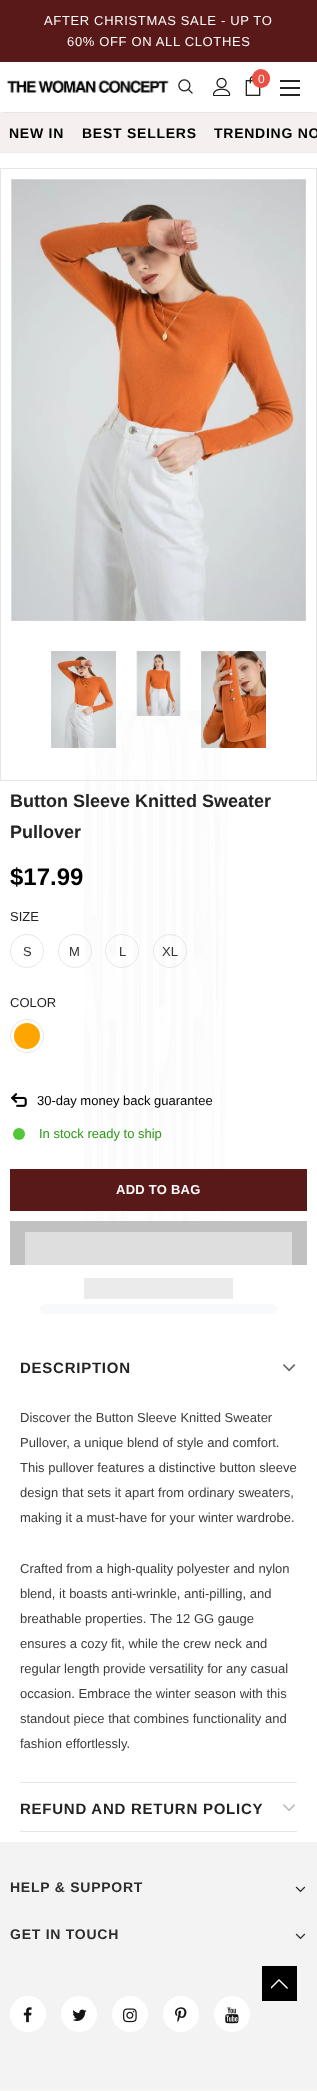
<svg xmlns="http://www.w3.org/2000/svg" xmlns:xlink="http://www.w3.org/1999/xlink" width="317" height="2091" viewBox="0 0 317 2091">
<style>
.cls-1{font:13px Liberation Sans;letter-spacing:0.65px;fill:#fcfafa}
.cls-2{font:12px Liberation Sans;fill:#fcfafa}
.cls-3{font:bold 14px Liberation Sans;letter-spacing:0.75px;fill:#000000}
.cls-4{font:bold 18px Liberation Sans;fill:#232323}
.cls-5{font:bold 24px Liberation Sans;fill:#000000}
.cls-6{font:13px Liberation Sans;fill:#232323}
.cls-7{font:13px Liberation Sans;fill:#323232}
.cls-8{font:13px Liberation Sans;fill:#000000}
.cls-9{font:13px Liberation Sans;fill:#2c9814}
.cls-10{font:bold 13px Liberation Sans;letter-spacing:0.25px;fill:#fcfafa}
.cls-11{font:bold 15px Liberation Sans;letter-spacing:0.75px;fill:#232323}
.cls-12{font:13px Liberation Sans;fill:#3c3c3c}
.cls-13{font:bold 14px Liberation Sans;letter-spacing:0.75px;fill:#2e2c2c}
</style>
<defs>
<clipPath id="clip1"><rect x="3" y="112" width="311" height="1"/></clipPath>
</defs>
<rect width="100%" height="100%" fill="#ffffff"/>
<rect fill="#591919" x="0" y="0" width="317" height="62"/>
<rect fill="#f5efef" x="0" y="112" width="317" height="40"/>
<g clip-path="url(#clip1)">
<rect fill="#000000" fill-opacity="0.12" filter="blur(1.5px)" x="3" y="68" width="311" height="44"/>
</g>
<image xlink:href="image0.png" x="178" y="79" width="15" height="15"/>
<image xlink:href="image1.png" x="213" y="78" width="18" height="18"/>
<image xlink:href="image2.png" x="245" y="76" width="16" height="20"/>
<rect fill="#e95144" x="252" y="69" width="18" height="19" rx="9"/>
<rect fill="#232323" x="280" y="80" width="20" height="2"/>
<rect fill="#232323" x="280" y="87" width="20" height="2"/>
<rect fill="#232323" x="280" y="94" width="20" height="2"/>
<image xlink:href="image3.png" x="6" y="80" width="163" height="13"/>
<rect fill="#ebebeb" x="0" y="152" width="317" height="1"/>
<image xlink:href="image4.png" x="84" y="710" width="143" height="511"/>
<rect fill="none" stroke="#e6e6e6" x="0.5" y="168.5" width="316" height="612"/>
<image xlink:href="image5.png" x="11" y="179" width="295" height="442"/>
<image xlink:href="image6.png" x="51" y="651" width="65" height="97"/>
<image xlink:href="image7.png" x="136" y="651" width="45" height="65"/>
<image xlink:href="image8.png" x="201" y="651" width="65" height="97"/>
<circle fill="none" stroke="#e7e7e7" cx="27" cy="951" r="16.5"/>
<circle fill="none" stroke="#e7e7e7" cx="75" cy="951" r="16.5"/>
<circle fill="none" stroke="#e7e7e7" cx="122" cy="951" r="16.5"/>
<circle fill="none" stroke="#e7e7e7" cx="170" cy="951" r="16.5"/>
<circle fill="none" stroke="#e7e7e7" cx="27" cy="1036" r="16.5"/>
<circle fill="#ffa500" cx="27" cy="1036" r="13"/>
<image xlink:href="image9.png" x="11" y="1093" width="16" height="14"/>
<circle fill="#54c63a" cx="19" cy="1134" r="6"/>
<rect fill="#591919" x="10" y="1169" width="297" height="42"/>
<rect fill="#c1c1c1" x="10" y="1221" width="297" height="44"/>
<rect fill="#dedede" x="25" y="1232" width="267" height="33"/>
<rect fill="#ebebeb" x="84" y="1278" width="149" height="21"/>
<rect fill="#f7f9fa" x="40" y="1304" width="237" height="10" rx="5"/>
<image xlink:href="image10.png" x="283" y="1364" width="13" height="8"/>
<rect fill="#e6e6e6" x="20" y="1782" width="277" height="1"/>
<image xlink:href="image11.png" x="283" y="1804" width="12" height="8"/>
<rect fill="#f3f3f3" x="0" y="1842" width="317" height="247"/>
<rect fill="#000000" x="262" y="1966" width="35" height="35"/>
<image xlink:href="image12.png" x="271" y="1979" width="17" height="10"/>
<rect fill="#e6e6e6" x="20" y="1831" width="277" height="1"/>
<image xlink:href="image13.png" x="295" y="1886" width="11" height="7"/>
<image xlink:href="image13.png" x="295" y="1933" width="11" height="7"/>
<circle fill="#ffffff" cx="28" cy="2014" r="18"/>
<image xlink:href="image14.png" x="23" y="2007" width="9" height="16"/>
<circle fill="#ffffff" cx="79" cy="2014" r="18"/>
<image xlink:href="image15.png" x="72" y="2009" width="15" height="12"/>
<circle fill="#ffffff" cx="130" cy="2014" r="18"/>
<image xlink:href="image16.png" x="123" y="2008" width="14" height="15"/>
<circle fill="#ffffff" cx="181" cy="2014" r="18"/>
<image xlink:href="image17.png" x="175" y="2007" width="12" height="16"/>
<circle fill="#ffffff" cx="232" cy="2014" r="18"/>
<image xlink:href="image18.png" x="225" y="2007" width="14" height="17"/>
<rect fill="#f8f5f5" x="0" y="2090" width="317" height="1"/>
<rect fill="#f5f5f5" x="0" y="2089" width="317" height="1"/>
<text class="cls-1" x="44" y="25">AFTER CHRISTMAS SALE - UP TO</text>
<text class="cls-1" x="67" y="46">60% OFF ON ALL CLOTHES</text>
<text class="cls-2" x="258" y="83">0</text>
<text class="cls-3" x="9" y="138">NEW IN</text>
<text class="cls-3" x="82" y="138">BEST SELLERS</text>
<text class="cls-3" x="214" y="138">TRENDING NO</text>
<text class="cls-4"><tspan x="10" y="807">Button Sleeve Knitted Sweater</tspan><tspan x="10" y="838">Pullover</tspan></text>
<text class="cls-5" x="10" y="885">$17.99</text>
<text class="cls-6" x="10" y="921">SIZE</text>
<text class="cls-7" x="23" y="956">S</text>
<text class="cls-7" x="69" y="956">M</text>
<text class="cls-7" x="119" y="956">L</text>
<text class="cls-7" x="162" y="956">XL</text>
<text class="cls-6" x="10" y="1007">COLOR</text>
<text class="cls-8" x="37" y="1105">30-day money back guarantee</text>
<text class="cls-9" x="39" y="1138">In stock ready to ship</text>
<text class="cls-10" x="116" y="1194">ADD TO BAG</text>
<text class="cls-11" x="20" y="1373">DESCRIPTION</text>
<text class="cls-12"><tspan x="20" y="1422">Discover the Button Sleeve Knitted Sweater</tspan><tspan x="20" y="1447">Pullover, a unique blend of style and comfort.</tspan><tspan x="20" y="1472">This pullover features a distinctive button sleeve</tspan><tspan x="20" y="1497">design that sets it apart from ordinary sweaters,</tspan><tspan x="20" y="1522">making it a must-have for your winter wardrobe.</tspan></text>
<text class="cls-12"><tspan x="20" y="1573">Crafted from a high-quality polyester and nylon</tspan><tspan x="20" y="1598">blend, it boasts anti-wrinkle, anti-pilling, and</tspan><tspan x="20" y="1623">breathable properties. The 12 GG gauge</tspan><tspan x="20" y="1648">ensures a cozy fit, while the crew neck and</tspan><tspan x="20" y="1673">regular length provide versatility for any casual</tspan><tspan x="20" y="1698">occasion. Embrace the winter season with this</tspan><tspan x="20" y="1723">standout piece that combines functionality and</tspan><tspan x="20" y="1748">fashion effortlessly.</tspan></text>
<text class="cls-11" x="20" y="1814">REFUND AND RETURN POLICY</text>
<text class="cls-13" x="10" y="1892">HELP &amp; SUPPORT</text>
<text class="cls-13" x="10" y="1939">GET IN TOUCH</text>
</svg>
